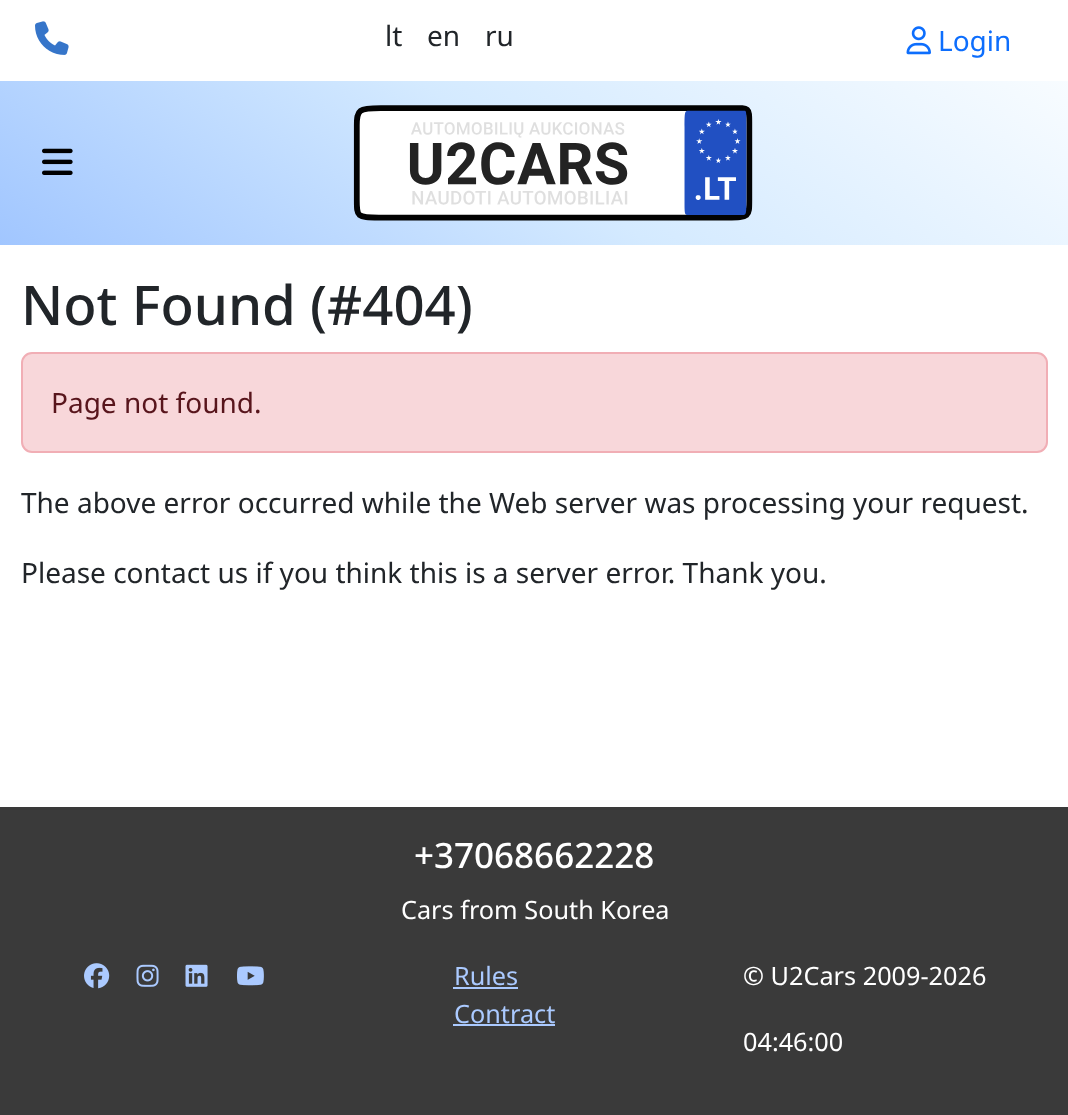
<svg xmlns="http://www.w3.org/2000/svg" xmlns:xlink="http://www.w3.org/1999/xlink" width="1068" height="1115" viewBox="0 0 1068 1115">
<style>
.cls-1{font:28px Noto Sans;fill:#212529}
.cls-2{font:28px Noto Sans;fill:#0d6efd}
.cls-3{font:500 54.5px Noto Sans;fill:#212529}
.cls-4{font:28px Noto Sans;fill:#58151c}
.cls-5{font:500 35px Noto Sans;fill:#ffffff}
.cls-6{font:25.25px Noto Sans;fill:#ffffff}
.cls-7{font:25.25px Noto Sans;fill:#abcaff}
</style>
<defs>
<linearGradient id="g1" gradientUnits="userSpaceOnUse" x1="320" y1="469" x2="749" y2="-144"><stop offset="0" stop-color="#a1c6ff"/><stop offset="0.5" stop-color="#d4eaff"/><stop offset="1" stop-color="#f8fcff"/></linearGradient>
</defs>
<rect width="100%" height="100%" fill="#ffffff"/>
<image xlink:href="image0.png" x="35" y="21" width="34" height="34"/>
<image xlink:href="image1.png" x="906" y="26" width="25" height="29"/>
<rect fill="url(#g1)" x="0" y="81" width="1068" height="164"/>
<image xlink:href="image2.png" x="42" y="148" width="31" height="27"/>
<image xlink:href="image3.png" x="353" y="105" width="400" height="116"/>
<rect fill="#f8d7da" stroke="#f1aeb5" stroke-width="2" x="22" y="353" width="1025" height="99" rx="10"/>
<rect fill="#3a3a3a" x="0" y="807" width="1068" height="308"/>
<image xlink:href="image4.png" x="84" y="963" width="26" height="26"/>
<image xlink:href="image5.png" x="136" y="964" width="23" height="23"/>
<image xlink:href="image6.png" x="185" y="964" width="23" height="23"/>
<image xlink:href="image7.png" x="237" y="966" width="27" height="20"/>
<rect fill="#abcaff" x="453" y="987" width="65" height="2"/>
<rect fill="#abcaff" x="453" y="1024" width="102" height="2"/>
<text class="cls-1" x="385" y="46">lt</text>
<text class="cls-1" x="427" y="46">en</text>
<text class="cls-1" x="485" y="46">ru</text>
<text class="cls-2" x="938" y="51">Login</text>
<text class="cls-3" x="21" y="325">Not Found (#404)</text>
<text class="cls-4" x="51" y="413">Page not found.</text>
<text class="cls-1" x="21" y="513">The above error occurred while the Web server was processing your request.</text>
<text class="cls-1" x="21" y="583">Please contact us if you think this is a server error. Thank you.</text>
<text class="cls-5" x="414" y="868">+37068662228</text>
<text class="cls-6" x="401" y="919">Cars from South Korea</text>
<text class="cls-7"><tspan x="454" y="985">Rules</tspan><tspan x="454" y="1023">Contract</tspan></text>
<text class="cls-6" x="743" y="985">© U2Cars 2009-2026</text>
<text class="cls-6" x="743" y="1051">04:46:00</text>
</svg>
